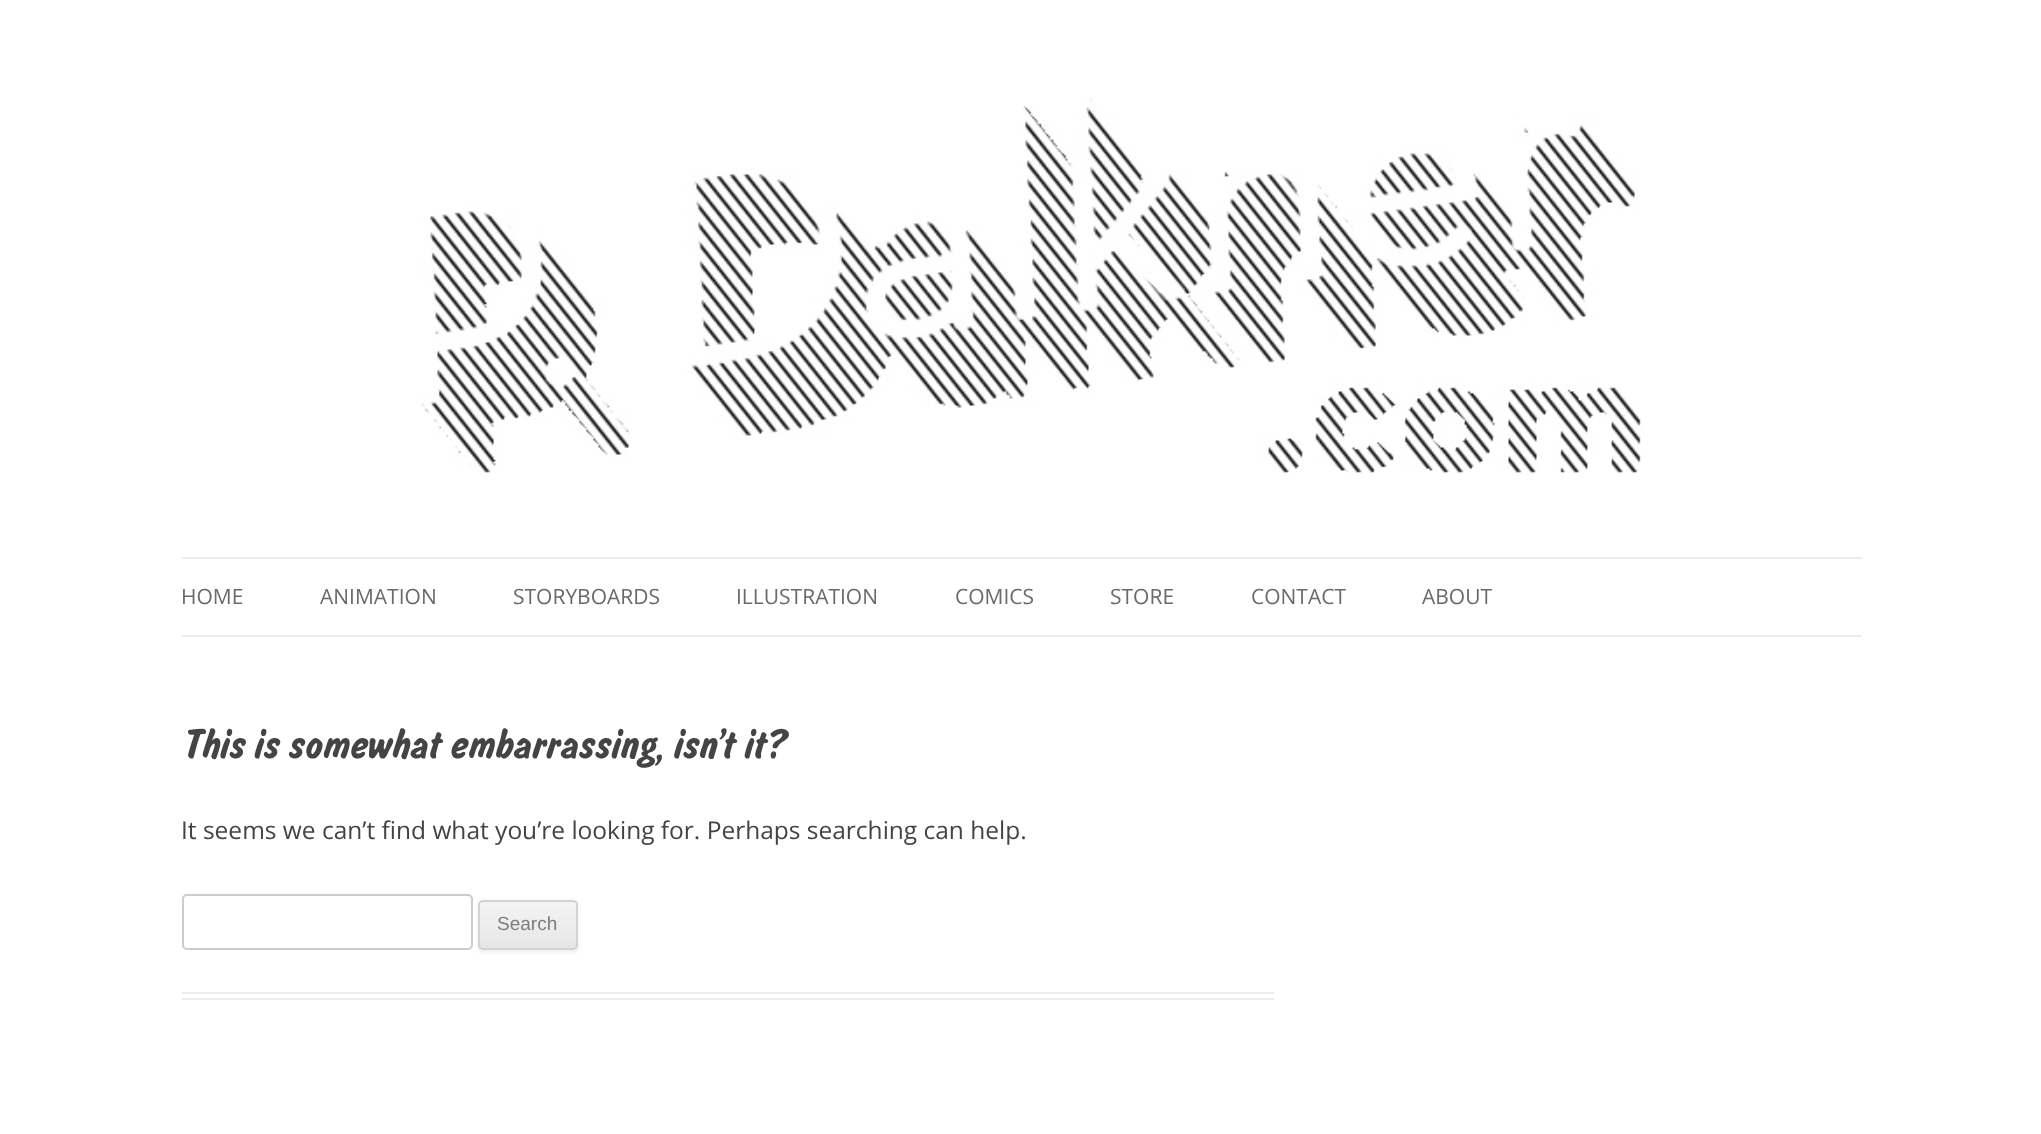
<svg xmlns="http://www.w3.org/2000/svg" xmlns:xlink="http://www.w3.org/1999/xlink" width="2041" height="1134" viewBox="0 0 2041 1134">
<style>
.cls-1{font:21px Open Sans;fill:#6a6a6a}
.cls-2{font:38.5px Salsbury;fill:#444444}
.cls-3{font:24.5px Open Sans;fill:#444444}
.cls-4{font:19px Liberation Sans;fill:#7c7c7c}
</style>
<defs>
<clipPath id="clip1"><rect x="478" y="900" width="100" height="50" rx="5"/></clipPath>
<linearGradient id="g1" gradientUnits="userSpaceOnUse" x1="528" y1="901" x2="528" y2="949"><stop offset="0" stop-color="#f4f4f4"/><stop offset="1" stop-color="#e6e6e6"/></linearGradient>
</defs>
<rect width="100%" height="100%" fill="#ffffff"/>
<image xlink:href="image0.png" x="421" y="97" width="1220" height="376"/>
<rect fill="#ededed" x="182" y="557" width="1680" height="2"/>
<rect fill="#ededed" x="182" y="635" width="1680" height="2"/>
<rect fill="#ededed" x="182" y="992" width="1092" height="2"/>
<rect fill="#ededed" x="182" y="998" width="1092" height="2"/>
<rect fill="none" stroke="#cccccc" stroke-width="2" x="183" y="895" width="289" height="54" rx="4"/>
<rect fill="#404040" fill-opacity="0.1" filter="blur(2px)" x="478" y="901" width="100" height="51" rx="5"/>
<g clip-path="url(#clip1)">
<rect fill="url(#g1)" x="478" y="901" width="100" height="48"/>
</g>
<rect fill="none" stroke="#d2d2d2" stroke-width="2" x="479" y="901" width="98" height="48" rx="4"/>
<text class="cls-1" x="181" y="604">HOME</text>
<text class="cls-1" x="320" y="604">ANIMATION</text>
<text class="cls-1" x="513" y="604">STORYBOARDS</text>
<text class="cls-1" x="736" y="604">ILLUSTRATION</text>
<text class="cls-1" x="955" y="604">COMICS</text>
<text class="cls-1" x="1110" y="604">STORE</text>
<text class="cls-1" x="1251" y="604">CONTACT</text>
<text class="cls-1" x="1422" y="604">ABOUT</text>
<text class="cls-2" x="181" y="758">This is somewhat embarrassing, isn’t it?</text>
<text class="cls-3" x="181" y="839">It seems we can’t find what you’re looking for. Perhaps searching can help.</text>
<text class="cls-4" x="497" y="930">Search</text>
</svg>
